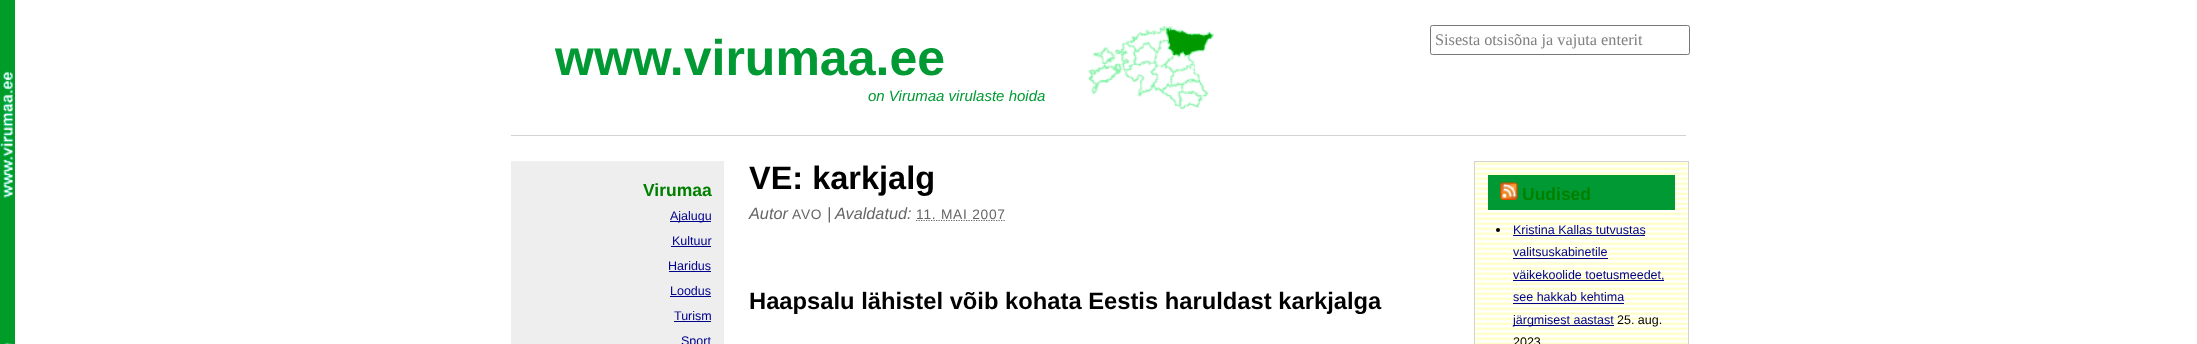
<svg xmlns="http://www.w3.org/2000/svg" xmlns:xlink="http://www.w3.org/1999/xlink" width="2197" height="344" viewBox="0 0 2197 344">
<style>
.cls-1{font:bold 50px Liberation Sans;fill:#009933}
.cls-2{font:italic 15px Liberation Sans;fill:#009933}
.cls-3{font:16.25px Liberation Serif;fill:#808080}
.cls-4{font:bold 17.5px Liberation Sans;fill:#008000}
.cls-5{font:12.5px Liberation Sans;fill:#00008b}
.cls-6{font:bold 32.5px Liberation Sans;fill:#000000}
.cls-7{font:italic 16.25px Liberation Sans;fill:#666666}
.cls-8{font:13.75px Liberation Sans;letter-spacing:0.75px;fill:#666666}
.cls-9{font:bold 23.75px Liberation Sans;fill:#000000}
.cls-10{font:12.5px Liberation Sans;fill:#000000}
</style>
<rect width="100%" height="100%" fill="#ffffff"/>
<image xlink:href="image0.png" x="0" y="0" width="15" height="344"/>
<image xlink:href="image1.png" x="1088" y="26" width="126" height="83"/>
<rect fill="#d3d3d3" x="511" y="135" width="1175" height="1"/>
<rect fill="none" stroke="#767676" x="1430.5" y="25.5" width="259" height="29" rx="2"/>
<rect fill="#eeeeee" x="511" y="161" width="213" height="183"/>
<rect fill="#00008b" x="670" y="221" width="41" height="1"/>
<rect fill="#00008b" x="671" y="246" width="40" height="1"/>
<rect fill="#00008b" x="669" y="271" width="42" height="1"/>
<rect fill="#00008b" x="670" y="296" width="41" height="1"/>
<rect fill="#00008b" x="674" y="321" width="37" height="1"/>
<path fill="none" stroke="#666666" stroke-width="1.2" stroke-dasharray="1.25 1.25" d="M916 220.5H1005"/>
<image xlink:href="image2.png" x="1473" y="162" width="215" height="182"/>
<rect fill="none" stroke="#d3d3d3" x="1474.5" y="161.5" width="214" height="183"/>
<rect fill="#009933" x="1488" y="175" width="187" height="35"/>
<image xlink:href="image3.png" x="1500" y="182" width="18" height="18"/>
<circle fill="#000000" cx="1498" cy="230" r="2"/>
<rect fill="#00008b" x="1513" y="235" width="132" height="1"/>
<rect fill="#00008b" x="1513" y="258" width="95" height="1"/>
<rect fill="#00008b" x="1513" y="280" width="151" height="1"/>
<rect fill="#00008b" x="1513" y="303" width="111" height="1"/>
<rect fill="#00008b" x="1513" y="325" width="101" height="1"/>
<text class="cls-1" x="555" y="75">www.virumaa.ee</text>
<text class="cls-2" x="868" y="101">on Virumaa virulaste hoida</text>
<text class="cls-3" x="1435" y="45">Sisesta otsisõna ja vajuta enterit</text>
<text class="cls-4" x="643" y="196">Virumaa</text>
<text class="cls-5" x="670" y="220">Ajalugu</text>
<text class="cls-5" x="672" y="245">Kultuur</text>
<text class="cls-5" x="668" y="270">Haridus</text>
<text class="cls-5" x="670" y="295">Loodus</text>
<text class="cls-5" x="674" y="320">Turism</text>
<text class="cls-5" x="681" y="345">Sport</text>
<text class="cls-6" x="749" y="189">VE: karkjalg</text>
<text class="cls-7" x="749" y="219">Autor</text>
<text class="cls-8" x="792" y="219">AVO</text>
<text class="cls-7" x="827" y="219">|</text>
<text class="cls-7" x="835" y="219">Avaldatud:</text>
<text class="cls-8" x="916" y="219">11. MAI 2007</text>
<text class="cls-9" x="749" y="309">Haapsalu lähistel võib kohata Eestis haruldast karkjalga</text>
<text class="cls-4" x="1522" y="200">Uudised</text>
<text class="cls-5"><tspan x="1513" y="234">Kristina Kallas tutvustas</tspan><tspan x="1513" y="256">valitsuskabinetile</tspan><tspan x="1513" y="279">väikekoolide toetusmeedet,</tspan><tspan x="1513" y="301">see hakkab kehtima</tspan><tspan x="1513" y="324">järgmisest aastast</tspan></text>
<text class="cls-10" x="1617" y="324">25. aug.</text>
<text class="cls-10" x="1513" y="346">2023</text>
</svg>
